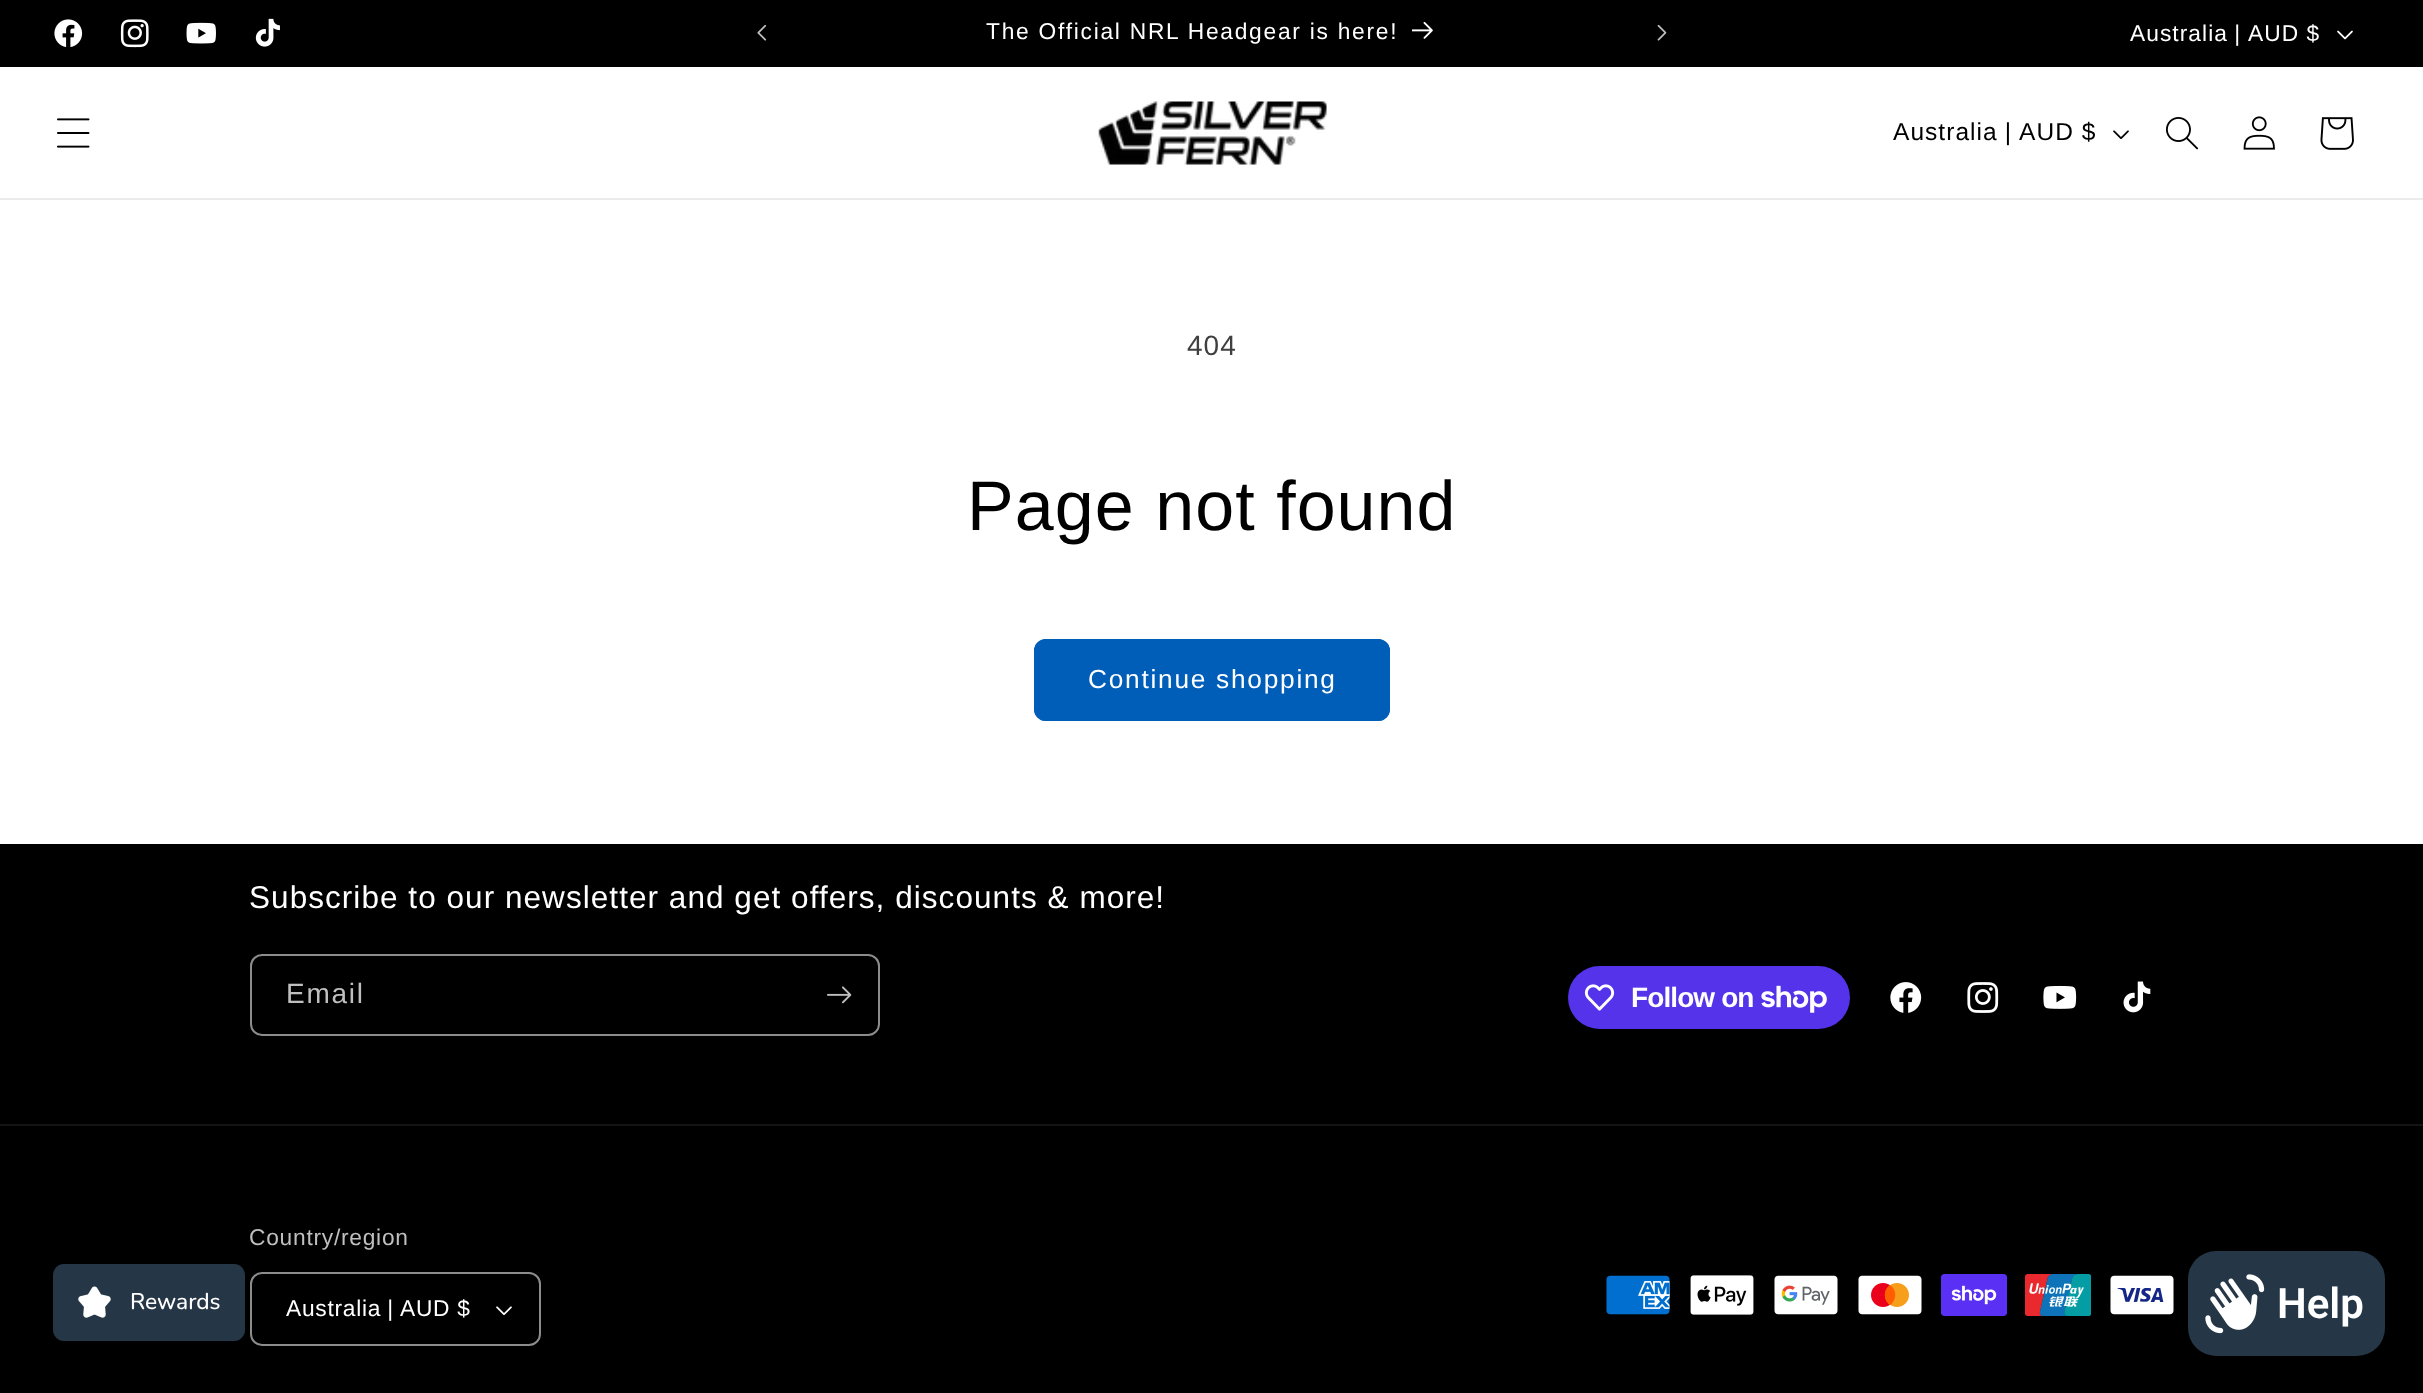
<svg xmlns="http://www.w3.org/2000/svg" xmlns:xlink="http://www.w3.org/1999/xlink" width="2423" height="1393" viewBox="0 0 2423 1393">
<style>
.cls-1{font:22.75px Liberation Sans;letter-spacing:1.75px;fill:#ffffff}
.cls-2{font:22.75px Liberation Sans;letter-spacing:1.05px;fill:#ffffff}
.cls-3{font:24.5px Liberation Sans;letter-spacing:1.05px;fill:#000000}
.cls-4{font:28px Liberation Sans;letter-spacing:1.05px;fill:#404040}
.cls-5{font:70px Liberation Sans;letter-spacing:1.05px;fill:#000000}
.cls-6{font:26.25px Liberation Sans;letter-spacing:1.75px;fill:#ffffff}
.cls-7{font:500 22.75px Nunito;fill:#ffffff}
.cls-8{font:31.5px Liberation Sans;letter-spacing:1.05px;fill:#ffffff}
.cls-9{font:28px Liberation Sans;letter-spacing:1.75px;fill:#bfbfbf}
.cls-10{font:bold 28px Liberation Sans;letter-spacing:-0.9px;fill:#ffffff}
.cls-11{font:22.75px Liberation Sans;letter-spacing:0.75px;fill:#bfbfbf}
.cls-12{font:22.75px Liberation Sans;letter-spacing:0.75px;fill:#ffffff}
.cls-13{font:600 42px Roboto;fill:#ffffff}
</style>
<rect width="100%" height="100%" fill="#ffffff"/>
<rect fill="#000000" x="0" y="0" width="2423" height="67"/>
<image xlink:href="image0.png" x="54" y="19" width="29" height="29"/>
<image xlink:href="image1.png" x="120" y="19" width="29" height="29"/>
<image xlink:href="image2.png" x="186" y="22" width="30" height="22"/>
<image xlink:href="image3.png" x="255" y="18" width="25" height="29"/>
<image xlink:href="image4.png" x="757" y="25" width="10" height="16"/>
<image xlink:href="image5.png" x="1412" y="21" width="21" height="18"/>
<image xlink:href="image6.png" x="1657" y="24" width="10" height="17"/>
<image xlink:href="image7.png" x="2337" y="30" width="16" height="10"/>
<rect fill="#ebebeb" x="0" y="198" width="2423" height="2"/>
<image xlink:href="image8.png" x="57" y="118" width="33" height="30"/>
<image xlink:href="image9.png" x="1098" y="101" width="229" height="64"/>
<image xlink:href="image10.png" x="2113" y="130" width="16" height="9"/>
<image xlink:href="image11.png" x="2166" y="117" width="32" height="33"/>
<image xlink:href="image12.png" x="2243" y="116" width="32" height="34"/>
<image xlink:href="image13.png" x="2320" y="117" width="34" height="33"/>
<rect fill="#005eb8" x="1034" y="639" width="356" height="82" rx="12"/>
<rect fill="none" stroke="#005eb8" stroke-width="2" x="1035" y="640" width="354" height="80" rx="11"/>
<rect fill="#000000" x="0" y="844" width="2423" height="549"/>
<rect fill="#253746" x="53" y="1264" width="192" height="77" rx="11"/>
<image xlink:href="image14.png" x="78" y="1286" width="33" height="32"/>
<rect fill="none" stroke="#8c8c8c" stroke-width="2" x="251" y="955" width="628" height="80" rx="11"/>
<image xlink:href="image15.png" x="827" y="986" width="25" height="18"/>
<rect fill="#5433eb" x="1568" y="966" width="282" height="63" rx="31.5"/>
<image xlink:href="image16.png" x="1584" y="984" width="31" height="27"/>
<image xlink:href="image17.png" x="1761" y="985" width="66" height="28"/>
<image xlink:href="image18.png" x="1890" y="982" width="32" height="31"/>
<image xlink:href="image19.png" x="1967" y="982" width="32" height="31"/>
<image xlink:href="image20.png" x="2043" y="985" width="34" height="24"/>
<image xlink:href="image21.png" x="2123" y="981" width="28" height="32"/>
<rect fill="#141414" x="0" y="1124" width="2423" height="2"/>
<image xlink:href="image22.png" x="496" y="1306" width="16" height="9"/>
<rect fill="none" stroke="#8c8c8c" stroke-width="2" x="251" y="1273" width="289" height="72" rx="11"/>
<image xlink:href="image23.png" x="1606" y="1275" width="64" height="40"/>
<image xlink:href="image24.png" x="1690" y="1275" width="64" height="40"/>
<image xlink:href="image25.png" x="1774" y="1275" width="64" height="40"/>
<image xlink:href="image26.png" x="1858" y="1275" width="64" height="40"/>
<image xlink:href="image27.png" x="1941" y="1274" width="66" height="42"/>
<image xlink:href="image28.png" x="2025" y="1274" width="66" height="42"/>
<image xlink:href="image29.png" x="2110" y="1275" width="64" height="40"/>
<rect fill="#253746" x="2188" y="1251" width="197" height="105" rx="28"/>
<image xlink:href="image30.png" x="2205" y="1274" width="60" height="60"/>
<text class="cls-1" x="986" y="39">The Official NRL Headgear is here!</text>
<text class="cls-2" x="2130" y="41" word-spacing="-1">Australia |</text>
<text class="cls-2" x="2248" y="41">AUD $</text>
<text class="cls-3" x="1893" y="140" word-spacing="-1">Australia |</text>
<text class="cls-3" x="2019" y="140">AUD $</text>
<text class="cls-4" x="1187" y="355">404</text>
<text class="cls-5" x="967" y="530">Page not found</text>
<text class="cls-6" x="1088" y="688">Continue shopping</text>
<text class="cls-7" x="130" y="1309">Rewards</text>
<text class="cls-8" x="249" y="908">Subscribe to our newsletter and get offers, discounts &amp; more!</text>
<text class="cls-9" x="286" y="1003">Email</text>
<text class="cls-10" x="1631" y="1007">Follow on</text>
<text class="cls-11" x="249" y="1245">Country/region</text>
<text class="cls-12" x="286" y="1316" word-spacing="-1">Australia |</text>
<text class="cls-12" x="400" y="1316">AUD $</text>
<text class="cls-13" x="2277" y="1318">Help</text>
</svg>
